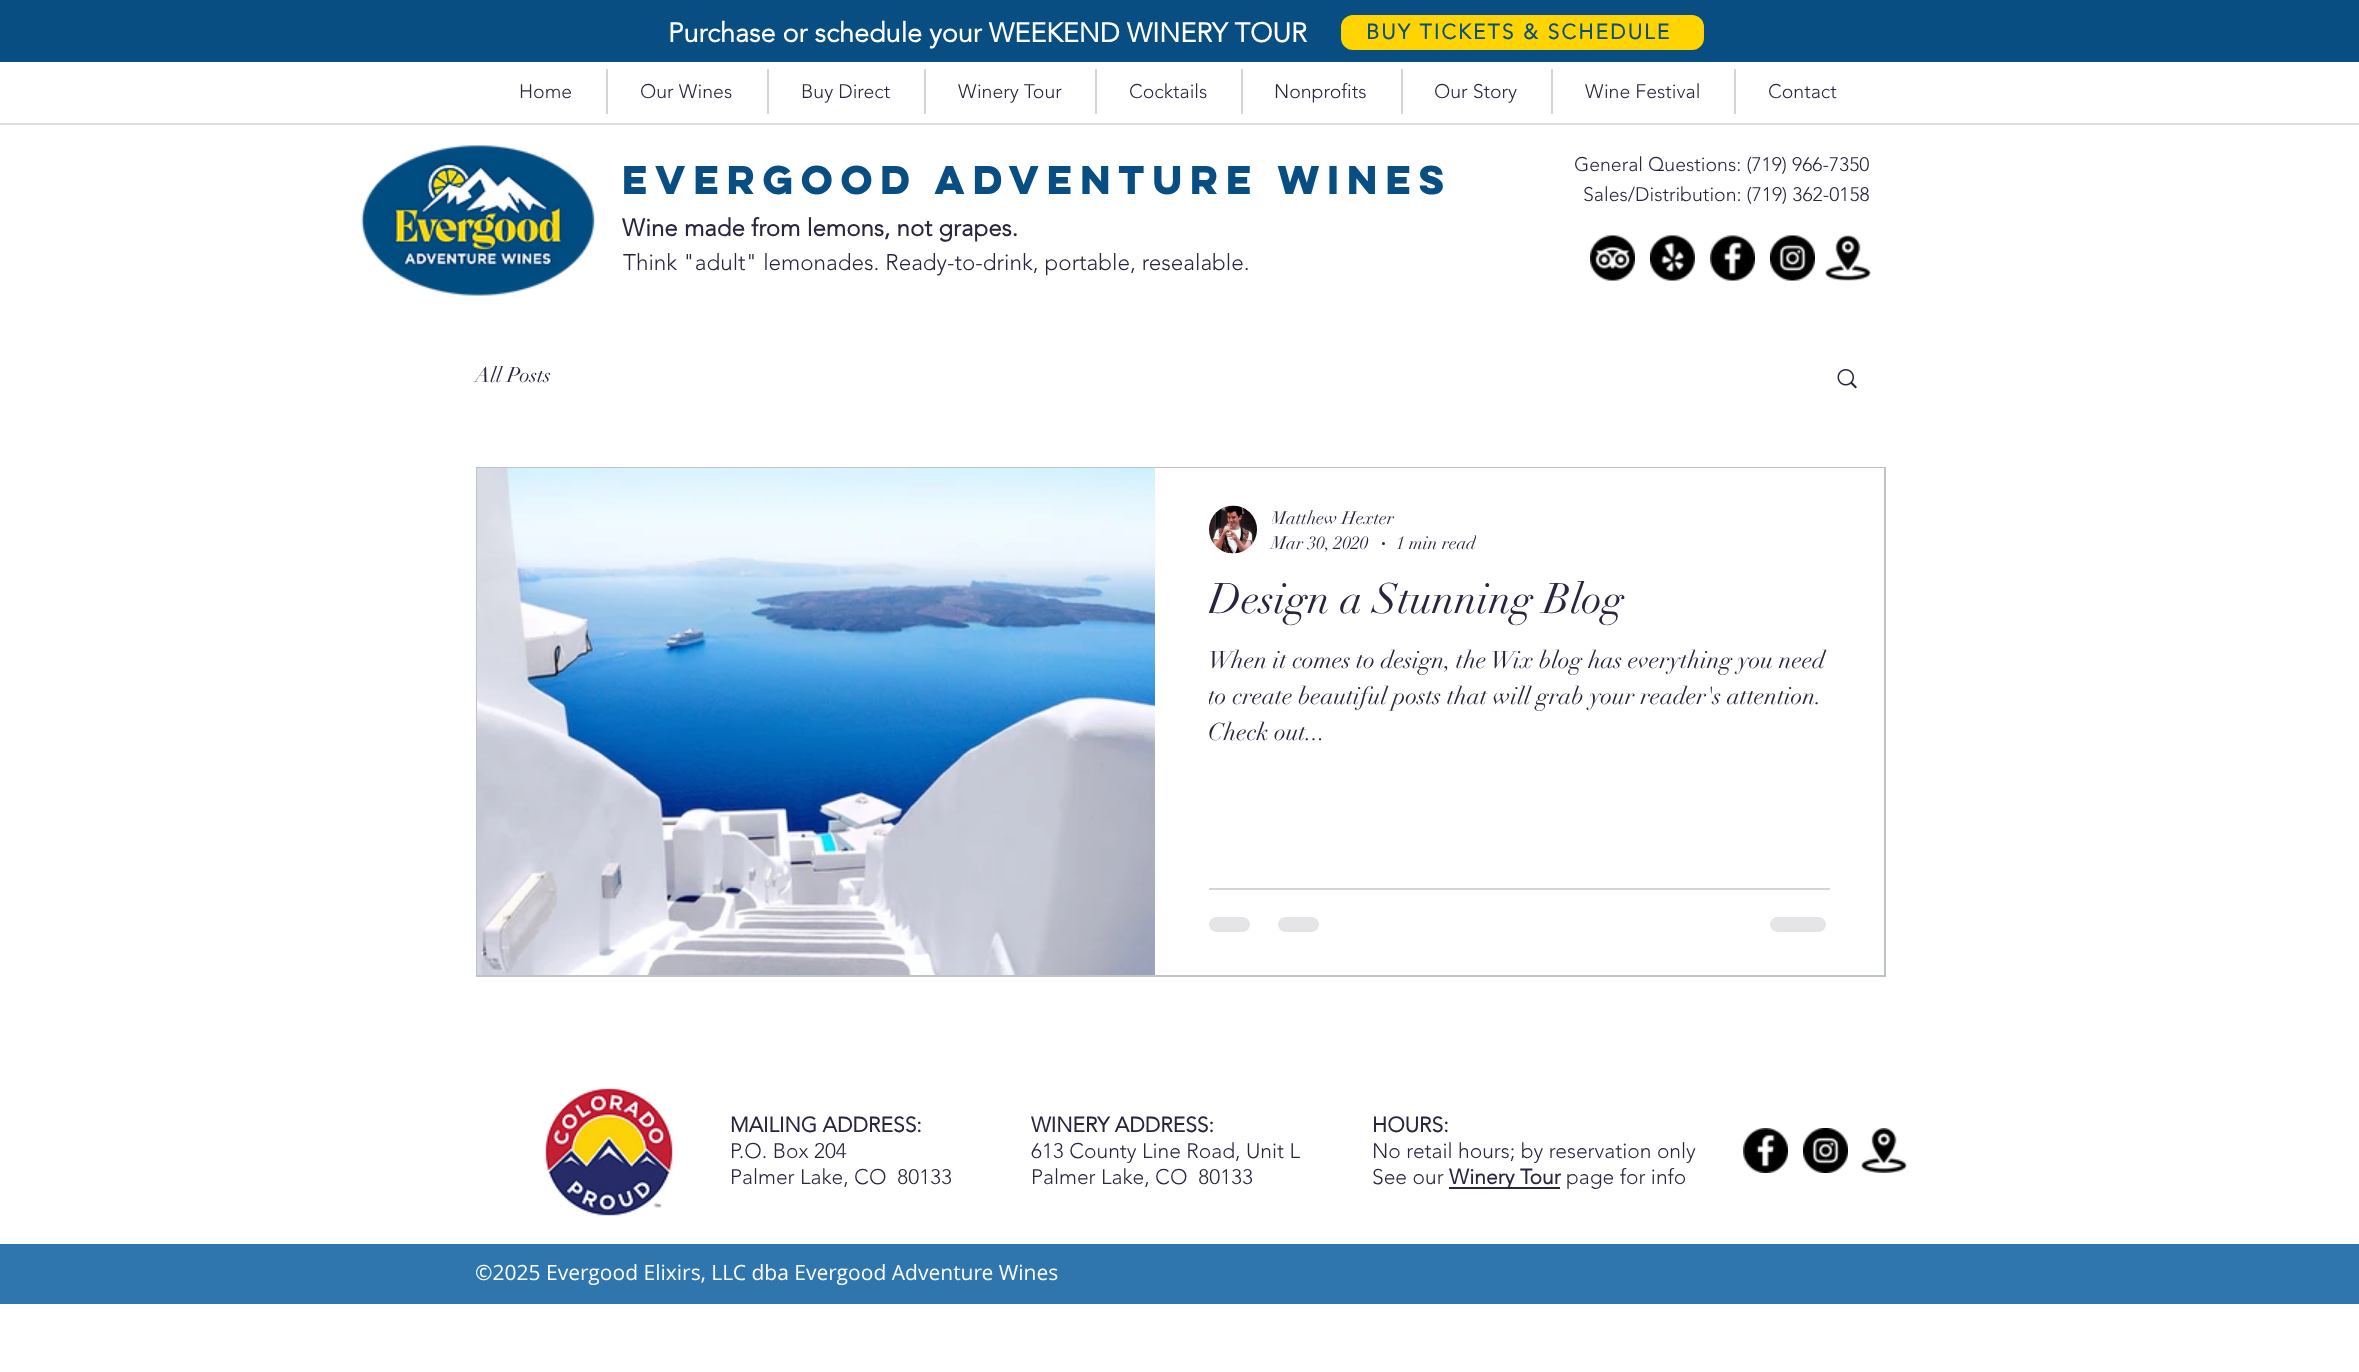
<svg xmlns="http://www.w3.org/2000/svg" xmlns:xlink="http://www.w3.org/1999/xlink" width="2359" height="1372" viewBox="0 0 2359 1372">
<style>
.cls-1{font:bold 27px 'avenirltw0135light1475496';fill:#ffffff}
.cls-2{font:bold 21px 'avenirltw0135light1475496';letter-spacing:2.1px;fill:#084e83}
.cls-3{font:300 19.5px 'avenirltw0135light1475496';fill:#28263f}
.cls-4{font:bold 36px 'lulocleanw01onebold';fill:#084e83}
.cls-5{font:bold 24px 'avenirltw0135light1475496';fill:#28263f}
.cls-6{font:300 22.5px 'avenirltw0135light1475496';fill:#28263f}
.cls-7{font:21px didot;fill:#28263f}
.cls-8{font:18px didot;fill:#28263f}
.cls-9{font:42px didot;fill:#28263f}
.cls-10{font:24px didot;fill:#28263f}
.cls-11{font:bold 21px 'avenirltw0135light1475496';fill:#28263f}
.cls-12{font:300 21px 'avenirltw0135light1475496';fill:#28263f}
.cls-13{font:21px Open Sans;fill:#ffffff}
</style>
<defs>
<clipPath id="clip1"><rect x="1272" y="509" width="123" height="21"/></clipPath>
<clipPath id="clip2"><rect x="1397" y="533" width="79" height="21"/></clipPath>
<clipPath id="clip3"><rect x="1209" y="575" width="621" height="51"/></clipPath>
<clipPath id="clip4"><rect x="1209" y="644" width="621" height="108"/></clipPath>
</defs>
<rect width="100%" height="100%" fill="#ffffff"/>
<rect fill="#084e83" x="0" y="0" width="2359" height="62"/>
<rect fill="#ffd400" x="1341" y="15" width="363" height="35" rx="12"/>
<rect fill="#d4d4d9" x="606" y="69" width="2" height="45"/>
<rect fill="#d4d4d9" x="767" y="69" width="2" height="45"/>
<rect fill="#d4d4d9" x="924" y="69" width="2" height="45"/>
<rect fill="#d4d4d9" x="1095" y="69" width="2" height="45"/>
<rect fill="#d4d4d9" x="1241" y="69" width="2" height="45"/>
<rect fill="#d4d4d9" x="1401" y="69" width="2" height="45"/>
<rect fill="#d4d4d9" x="1551" y="69" width="2" height="45"/>
<rect fill="#d4d4d9" x="1734" y="69" width="2" height="45"/>
<rect fill="#dfdee2" x="0" y="123" width="2359" height="2"/>
<image xlink:href="image0.png" x="361" y="145" width="234" height="151"/>
<image xlink:href="image1.png" x="1590" y="235" width="45" height="46"/>
<image xlink:href="image2.png" x="1650" y="235" width="45" height="46"/>
<image xlink:href="image3.png" x="1710" y="235" width="45" height="46"/>
<image xlink:href="image4.png" x="1770" y="235" width="45" height="46"/>
<image xlink:href="image5.png" x="1825" y="235" width="46" height="46"/>
<image xlink:href="image6.png" x="1837" y="369" width="20" height="20"/>
<rect fill="none" stroke="#bec3c6" stroke-width="2" x="477" y="468" width="1408" height="508"/>
<image xlink:href="image7.png" x="477" y="468" width="678" height="507"/>
<rect fill="#ffffff" x="1155" y="468" width="729" height="1"/>
<image xlink:href="image8.png" x="1209" y="505" width="48" height="49"/>
<circle fill="#28263f" cx="1383.5" cy="543.5" r="1.5"/>
<rect fill="#d4d4d9" x="1209" y="888" width="621" height="2"/>
<rect fill="#e5e5e8" x="1209" y="917" width="41" height="15" rx="7.5"/>
<rect fill="#e5e5e8" x="1278" y="917" width="41" height="15" rx="7.5"/>
<rect fill="#e5e5e8" x="1770" y="917" width="56" height="15" rx="7.5"/>
<image xlink:href="image9.png" x="543" y="1086" width="132" height="132"/>
<rect fill="#28263f" x="1449" y="1187" width="111" height="2"/>
<image xlink:href="image10.png" x="1743" y="1128" width="45" height="45"/>
<image xlink:href="image11.png" x="1803" y="1128" width="45" height="45"/>
<image xlink:href="image12.png" x="1861" y="1128" width="46" height="45"/>
<rect fill="#2f76af" x="0" y="1244" width="2359" height="60"/>
<text class="cls-1" x="668" y="42">Purchase or schedule your WEEKEND WINERY TOUR</text>
<text class="cls-2" x="1366" y="39">BUY TICKETS &amp; SCHEDULE</text>
<text class="cls-3" x="519" y="98">Home</text>
<text class="cls-3" x="640" y="98">Our Wines</text>
<text class="cls-3" x="801" y="98">Buy Direct</text>
<text class="cls-3" x="958" y="98">Winery Tour</text>
<text class="cls-3" x="1129" y="98">Cocktails</text>
<text class="cls-3" x="1274" y="98">Nonprofits</text>
<text class="cls-3" x="1434" y="98">Our Story</text>
<text class="cls-3" x="1585" y="98">Wine Festival</text>
<text class="cls-3" x="1768" y="98">Contact</text>
<text class="cls-4" x="622" y="194">Evergood adventure wines</text>
<text class="cls-3" x="1574" y="171">General Questions: (719) 966-7350</text>
<text class="cls-3" x="1583" y="201">Sales/Distribution: (719) 362-0158</text>
<text class="cls-5" x="622" y="236">Wine made from lemons, not grapes.</text>
<text class="cls-6" x="623" y="270">Think "adult" lemonades. Ready-to-drink, portable, resealable.</text>
<text class="cls-7" x="475" y="382">All Posts</text>
<g clip-path="url(#clip1)">
<text class="cls-8" x="1271" y="524">Matthew Hexter</text>
</g>
<text class="cls-8" x="1271" y="549">Mar 30, 2020</text>
<g clip-path="url(#clip2)">
<text class="cls-8" x="1396" y="549">1 min read</text>
</g>
<g clip-path="url(#clip3)">
<text class="cls-9" x="1208" y="613">Design a Stunning Blog</text>
</g>
<text class="cls-10" x="1208" y="668">When it comes to design, the Wix blog has everything you need</text>
<g clip-path="url(#clip4)">
<text class="cls-10" x="1208" y="704">to create beautiful posts that will grab your reader's attention.</text>
</g>
<text class="cls-10" x="1208" y="740">Check out...</text>
<text class="cls-11" x="730" y="1132">MAILING ADDRESS:</text>
<text class="cls-12" xml:space="preserve"><tspan x="730" y="1158">P.O. Box 204</tspan><tspan x="730" y="1184">Palmer Lake, CO  80133</tspan></text>
<text class="cls-11" x="1031" y="1132">WINERY ADDRESS:</text>
<text class="cls-12" xml:space="preserve"><tspan x="1031" y="1158">613 County Line Road, Unit L</tspan><tspan x="1031" y="1184">Palmer Lake, CO  80133</tspan></text>
<text class="cls-11" x="1372" y="1132">HOURS:</text>
<text class="cls-12"><tspan x="1372" y="1158">No retail hours; by reservation only</tspan><tspan x="1372" y="1184">See our</tspan></text>
<text class="cls-11" x="1449" y="1184">Winery Tour</text>
<text class="cls-12" x="1566" y="1184">page for info</text>
<text class="cls-13" x="475" y="1280">©2025 Evergood Elixirs, LLC dba Evergood Adventure Wines</text>
</svg>
